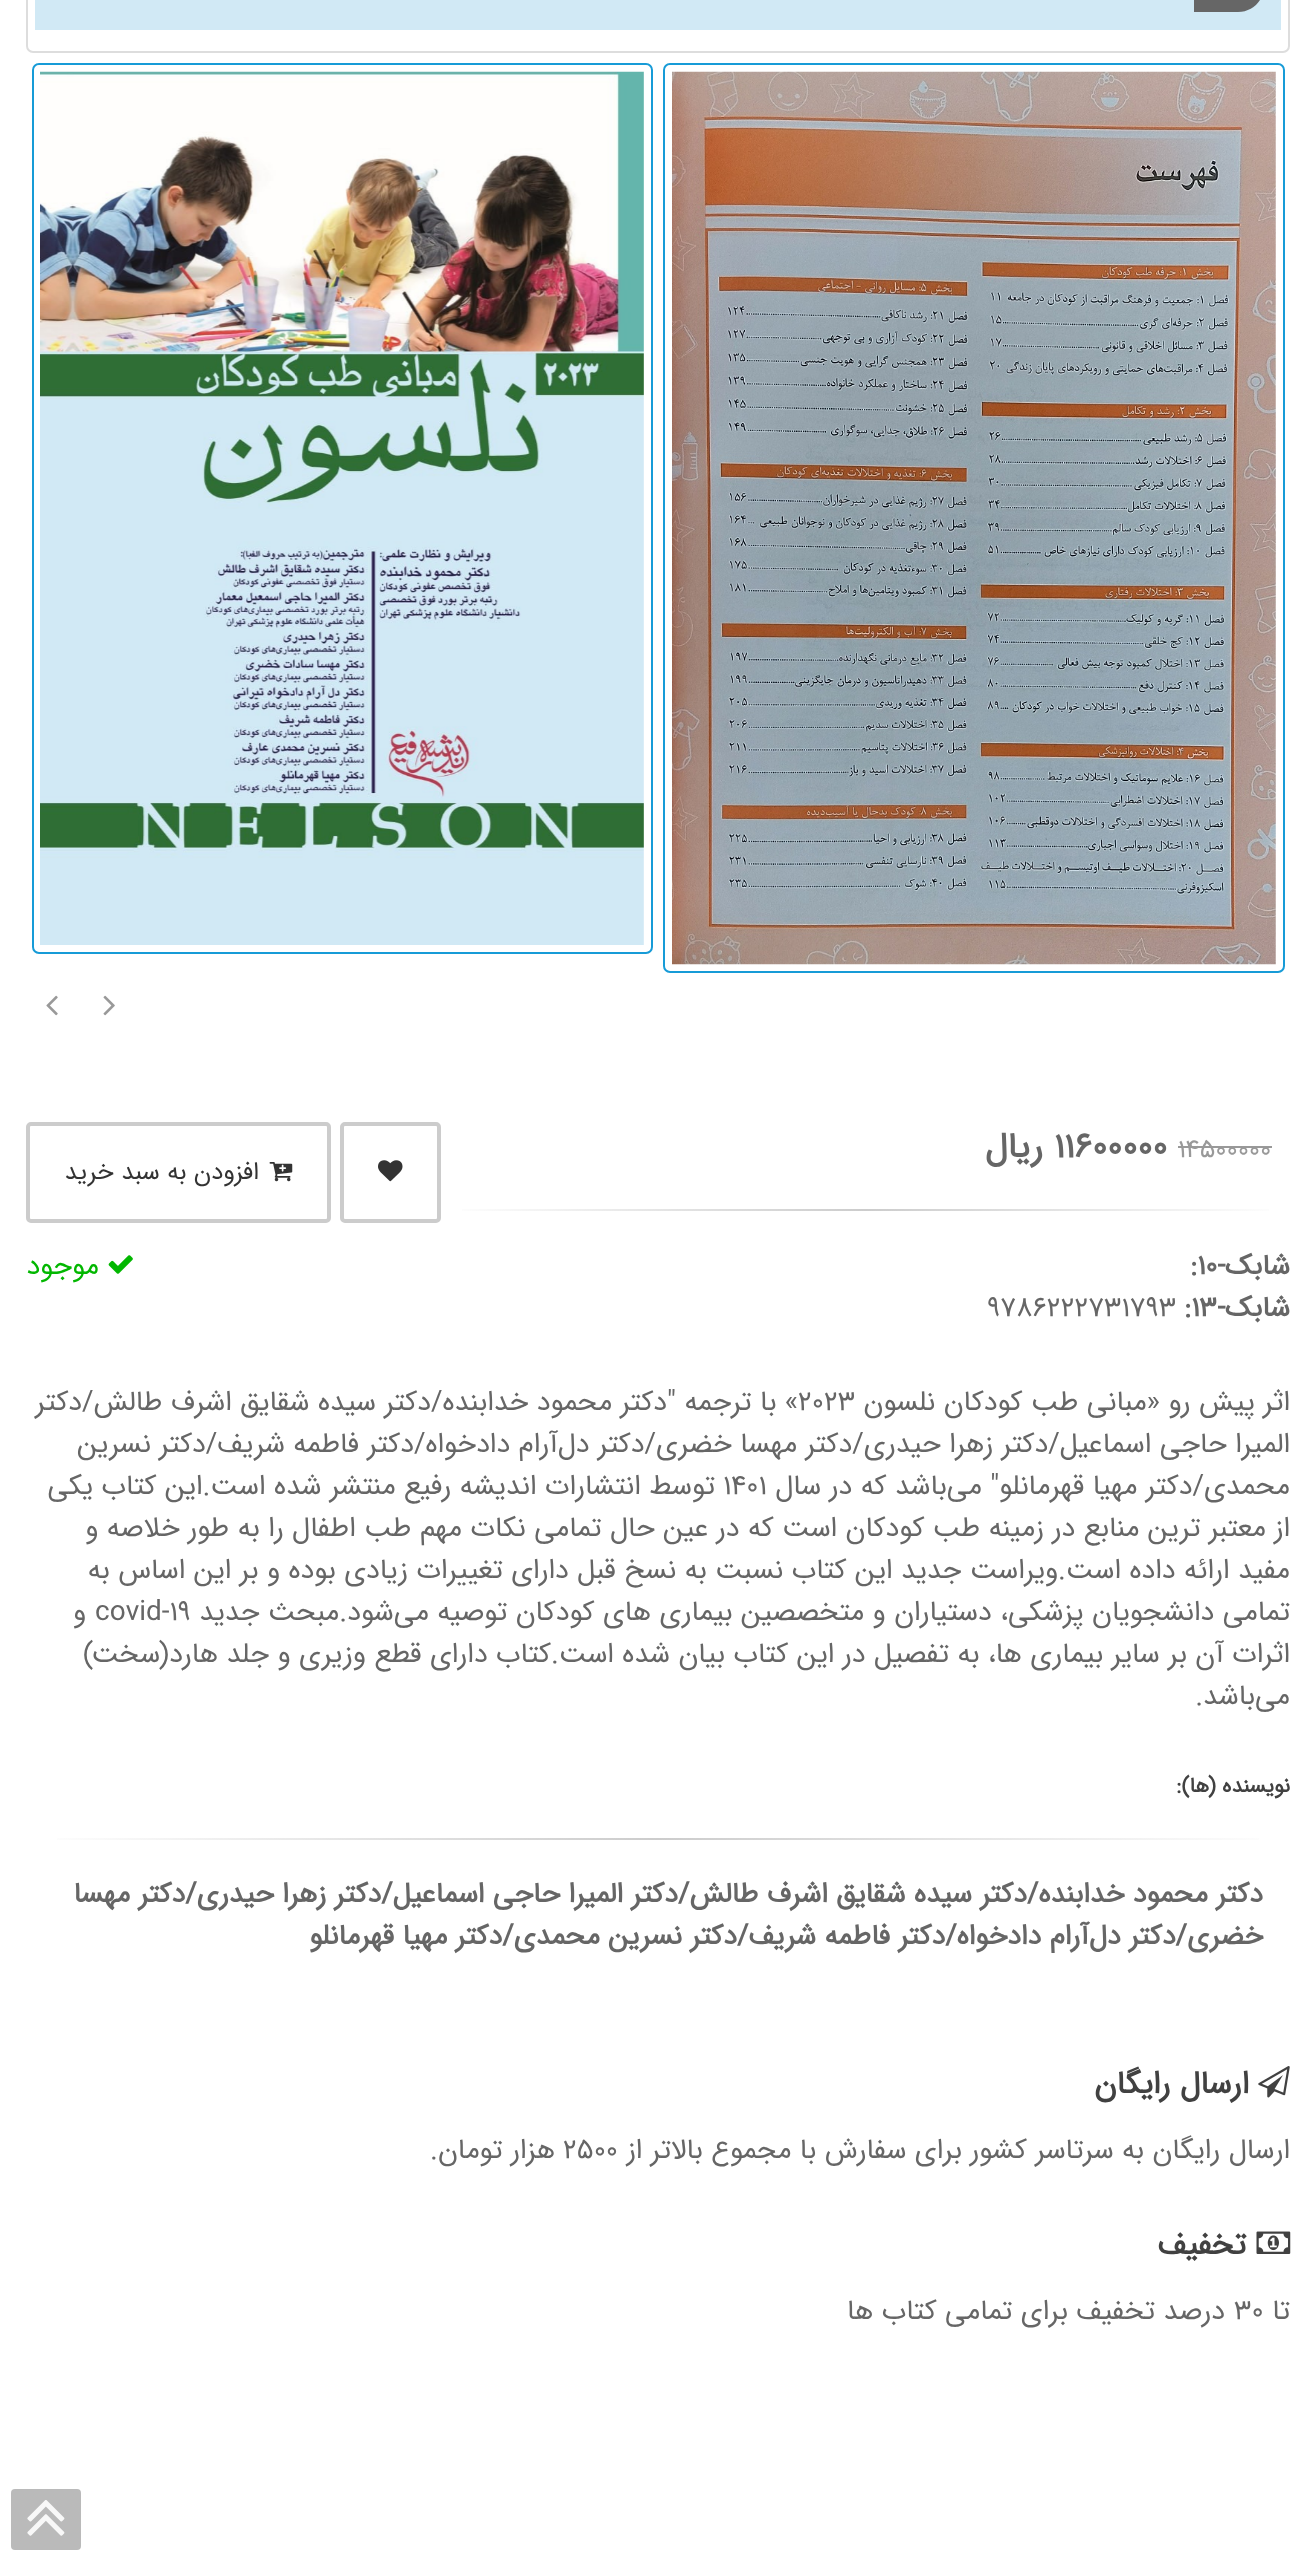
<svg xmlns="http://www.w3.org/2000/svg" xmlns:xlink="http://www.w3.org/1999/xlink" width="1315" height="2559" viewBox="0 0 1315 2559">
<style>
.cls-1{font:26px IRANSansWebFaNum;fill:#999999}
.cls-2{font:bold 35px IRANSansWebFaNum;fill:#666666}
.cls-3{font:bold 35px IRANSansWebFaNum;direction:rtl;fill:#666666}
.cls-4{font:24.5px IRANSansWebFaNum;direction:rtl;fill:#333333}
.cls-5{font:bold 28px IRANSansWebFaNum;direction:rtl;fill:#666666}
.cls-6{font:bold 28px IRANSansWebFaNum;fill:#666666}
.cls-7{font:28px IRANSansWebFaNum;direction:rtl;fill:#02b700}
.cls-8{font:28px IRANSansWebFaNum;fill:#666666}
.cls-9{font:28px IRANSansWebFaNum;direction:rtl;fill:#666666}
.cls-10{font:bold 21px IRANSansWebFaNum;direction:rtl;fill:#414141}
.cls-11{font:bold 31.5px IRANSansWebFaNum;direction:rtl;fill:#414141}
</style>
<defs>
<linearGradient id="g1" gradientUnits="userSpaceOnUse" x1="441" y1="1210" x2="1290" y2="1210"><stop offset="0" stop-color="#ffffff"/><stop offset="0.5" stop-color="#cccccc"/><stop offset="1" stop-color="#ffffff"/></linearGradient>
<linearGradient id="g2" gradientUnits="userSpaceOnUse" x1="26" y1="1838" x2="1290" y2="1838"><stop offset="0" stop-color="#ffffff"/><stop offset="0.5" stop-color="#cccccc"/><stop offset="1" stop-color="#ffffff"/></linearGradient>
</defs>
<rect width="100%" height="100%" fill="#ffffff"/>
<rect fill="none" stroke="#dddddd" stroke-width="2" x="27" y="-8" width="1262" height="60" rx="6"/>
<rect fill="#d1e9f5" x="35" y="0" width="1246" height="30"/>
<path fill="#666666" d="M1220-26H1264V-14C1264 .5 1252.5 12 1238 12H1194V0C1194-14.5 1205.5-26 1220-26Z"/>
<rect fill="none" stroke="#179bd7" stroke-width="2" x="664" y="64" width="620" height="908" rx="6"/>
<image xlink:href="image0.png" x="672" y="71" width="604" height="894"/>
<rect fill="none" stroke="#179bd7" stroke-width="2" x="33" y="64" width="619" height="889" rx="6"/>
<image xlink:href="image1.png" x="40" y="71" width="604" height="874"/>
<image xlink:href="image2.png" x="103" y="995" width="12" height="21"/>
<image xlink:href="image3.png" x="46" y="995" width="12" height="21"/>
<rect fill="#999999" x="1178" y="1146" width="94" height="2"/>
<rect fill="none" stroke="#cccccc" stroke-width="4" x="342" y="1124" width="97" height="97" rx="3"/>
<image xlink:href="image4.png" x="378" y="1160" width="25" height="22"/>
<rect fill="none" stroke="#cccccc" stroke-width="4" x="28" y="1124" width="301" height="97" rx="3"/>
<image xlink:href="image5.png" x="269" y="1162" width="24" height="20"/>
<rect fill="url(#g1)" x="462" y="1209" width="807" height="2"/>
<image xlink:href="image6.png" x="108" y="1255" width="25" height="19"/>
<rect fill="url(#g2)" x="57" y="1838" width="1202" height="2"/>
<image xlink:href="image7.png" x="1258" y="2066" width="32" height="32"/>
<image xlink:href="image8.png" x="1256" y="2231" width="35" height="23"/>
<rect fill="#bababa" x="11" y="2489" width="70" height="61" rx="4"/>
<image xlink:href="image9.png" x="27" y="2500" width="38" height="36"/>
<text class="cls-1" x="1178" y="1157">14500000</text>
<text class="cls-2" x="1054" y="1157">11600000</text>
<text class="cls-3" x="1043" y="1157">ریال</text>
<text class="cls-4" x="259" y="1179">افزودن به سبد خرید</text>
<text class="cls-5" x="1290" y="1274">شابک-</text>
<text class="cls-6" x="1190" y="1274">:۱۰</text>
<text class="cls-7" x="99" y="1274">موجود</text>
<text class="cls-5" x="1290" y="1316">شابک-</text>
<text class="cls-6" x="1184" y="1316">:۱۳</text>
<text class="cls-8" x="987" y="1316">9786222731793</text>
<text class="cls-9" x="1290" y="1410">اثر پیش رو «مبانی طب کودکان نلسون</text>
<text class="cls-8" x="798" y="1410">2023</text>
<text class="cls-9" x="798" y="1410">» با ترجمه "دکتر محمود خدابنده/دکتر سیده شقایق اشرف طالش/دکتر</text>
<text class="cls-9"><tspan x="1290" y="1452">المیرا حاجی اسماعیل/دکتر زهرا حیدری/دکتر مهسا خضری/دکتر دل‌آرام دادخواه/دکتر فاطمه شریف/دکتر نسرین</tspan><tspan x="1290" y="1494">محمدی/دکتر مهیا قهرمانلو" می‌باشد که در سال</tspan></text>
<text class="cls-8" x="723" y="1494">1401</text>
<text class="cls-9" x="715" y="1494">توسط انتشارات اندیشه رفیع منتشر شده است.این کتاب یکی</text>
<text class="cls-9"><tspan x="1290" y="1536">از معتبر ترین منابع در زمینه طب کودکان است که در عین حال تمامی نکات مهم طب اطفال را به طور خلاصه و</tspan><tspan x="1290" y="1578">مفید ارائه داده است.ویراست جدید این کتاب نسبت به نسخ قبل دارای تغییرات زیادی بوده و بر این اساس به</tspan><tspan x="1290" y="1620">تمامی دانشجویان پزشکی، دستیاران و متخصصین بیماری های کودکان توصیه می‌شود.مبحث جدید</tspan></text>
<text class="cls-8" x="95" y="1620">covid-19</text>
<text class="cls-9" x="86" y="1620">و</text>
<text class="cls-9"><tspan x="1290" y="1662">اثرات آن بر سایر بیماری ها، به تفصیل در این کتاب بیان شده است.کتاب دارای قطع وزیری و جلد هارد(سخت)</tspan><tspan x="1290" y="1704">می‌باشد.</tspan></text>
<text class="cls-10" x="1290" y="1792">نویسنده (ها):</text>
<text class="cls-5"><tspan x="1263" y="1902">دکتر محمود خدابنده/دکتر سیده شقایق اشرف طالش/دکتر المیرا حاجی اسماعیل/دکتر زهرا حیدری/دکتر مهسا</tspan><tspan x="1263" y="1944">خضری/دکتر دل‌آرام دادخواه/دکتر فاطمه شریف/دکتر نسرین محمدی/دکتر مهیا قهرمانلو</tspan></text>
<text class="cls-11" x="1249" y="2093">ارسال رایگان</text>
<text class="cls-9" x="1290" y="2158">ارسال رایگان به سرتاسر کشور برای سفارش با مجموع بالاتر از</text>
<text class="cls-8" x="563" y="2158">2500</text>
<text class="cls-9" x="555" y="2158">هزار تومان.</text>
<text class="cls-11" x="1246" y="2254">تخفیف</text>
<text class="cls-9" x="1290" y="2319">تا</text>
<text class="cls-8" x="1234" y="2319">۳۰</text>
<text class="cls-9" x="1225" y="2319">درصد تخفیف برای تمامی کتاب ها</text>
</svg>
